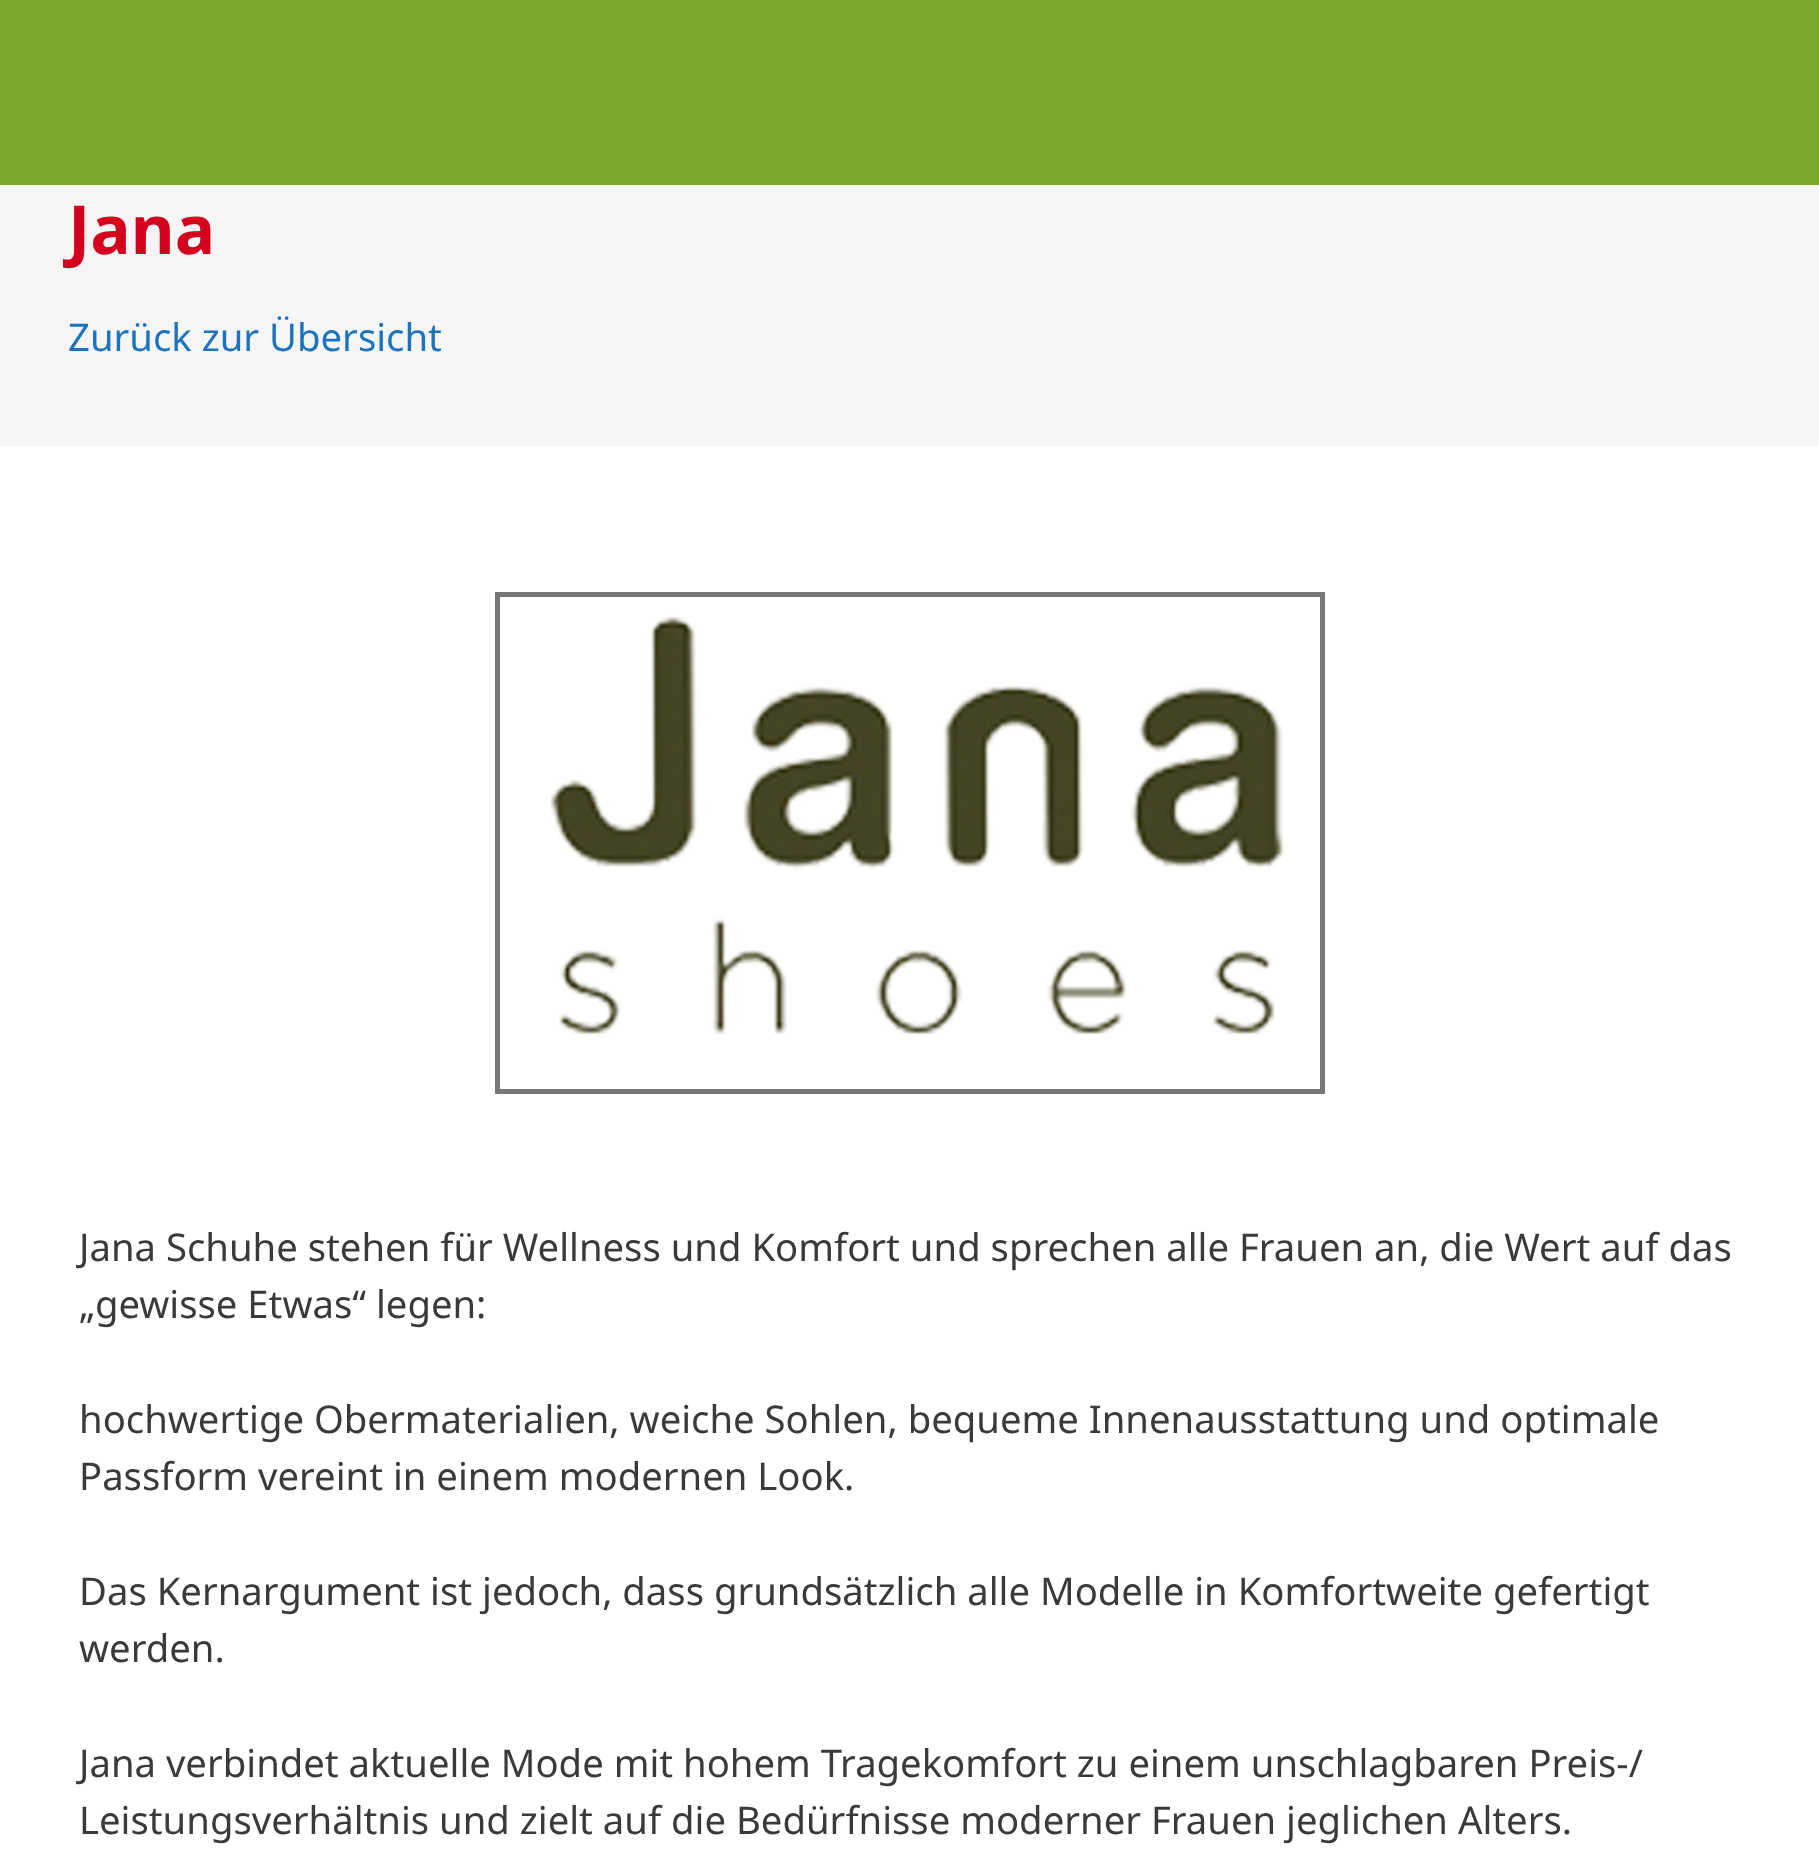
<svg xmlns="http://www.w3.org/2000/svg" xmlns:xlink="http://www.w3.org/1999/xlink" width="1819" height="1853" viewBox="0 0 1819 1853">
<style>
.cls-1{font:bold 67.5px Noto Sans;fill:#d4021d}
.cls-2{font:38.25px Noto Sans;fill:#1e73be}
.cls-3{font:38.25px Noto Sans;fill:#3a3a3a}
</style>
<rect width="100%" height="100%" fill="#ffffff"/>
<rect fill="#7aa62c" x="0" y="0" width="1819" height="185"/>
<rect fill="#f5f5f5" x="0" y="185" width="1819" height="261"/>
<rect fill="none" stroke="#777777" stroke-width="5" x="497.5" y="594.5" width="825" height="497"/>
<image xlink:href="image0.png" x="550" y="616" width="734" height="419"/>
<text class="cls-1" x="68" y="254">Jana</text>
<text class="cls-2" x="68" y="351">Zurück zur Übersicht</text>
<text class="cls-3"><tspan x="79" y="1261">Jana Schuhe stehen für Wellness und Komfort und sprechen alle Frauen an, die Wert auf das</tspan><tspan x="79" y="1318">„gewisse Etwas“ legen:</tspan></text>
<text class="cls-3"><tspan x="79" y="1433">hochwertige Obermaterialien, weiche Sohlen, bequeme Innenausstattung und optimale</tspan><tspan x="79" y="1490">Passform vereint in einem modernen Look.</tspan></text>
<text class="cls-3"><tspan x="79" y="1605">Das Kernargument ist jedoch, dass grundsätzlich alle Modelle in Komfortweite gefertigt</tspan><tspan x="79" y="1662">werden.</tspan></text>
<text class="cls-3"><tspan x="79" y="1777">Jana verbindet aktuelle Mode mit hohem Tragekomfort zu einem unschlagbaren Preis-/</tspan><tspan x="79" y="1834">Leistungsverhältnis und zielt auf die Bedürfnisse moderner Frauen jeglichen Alters.</tspan></text>
</svg>
